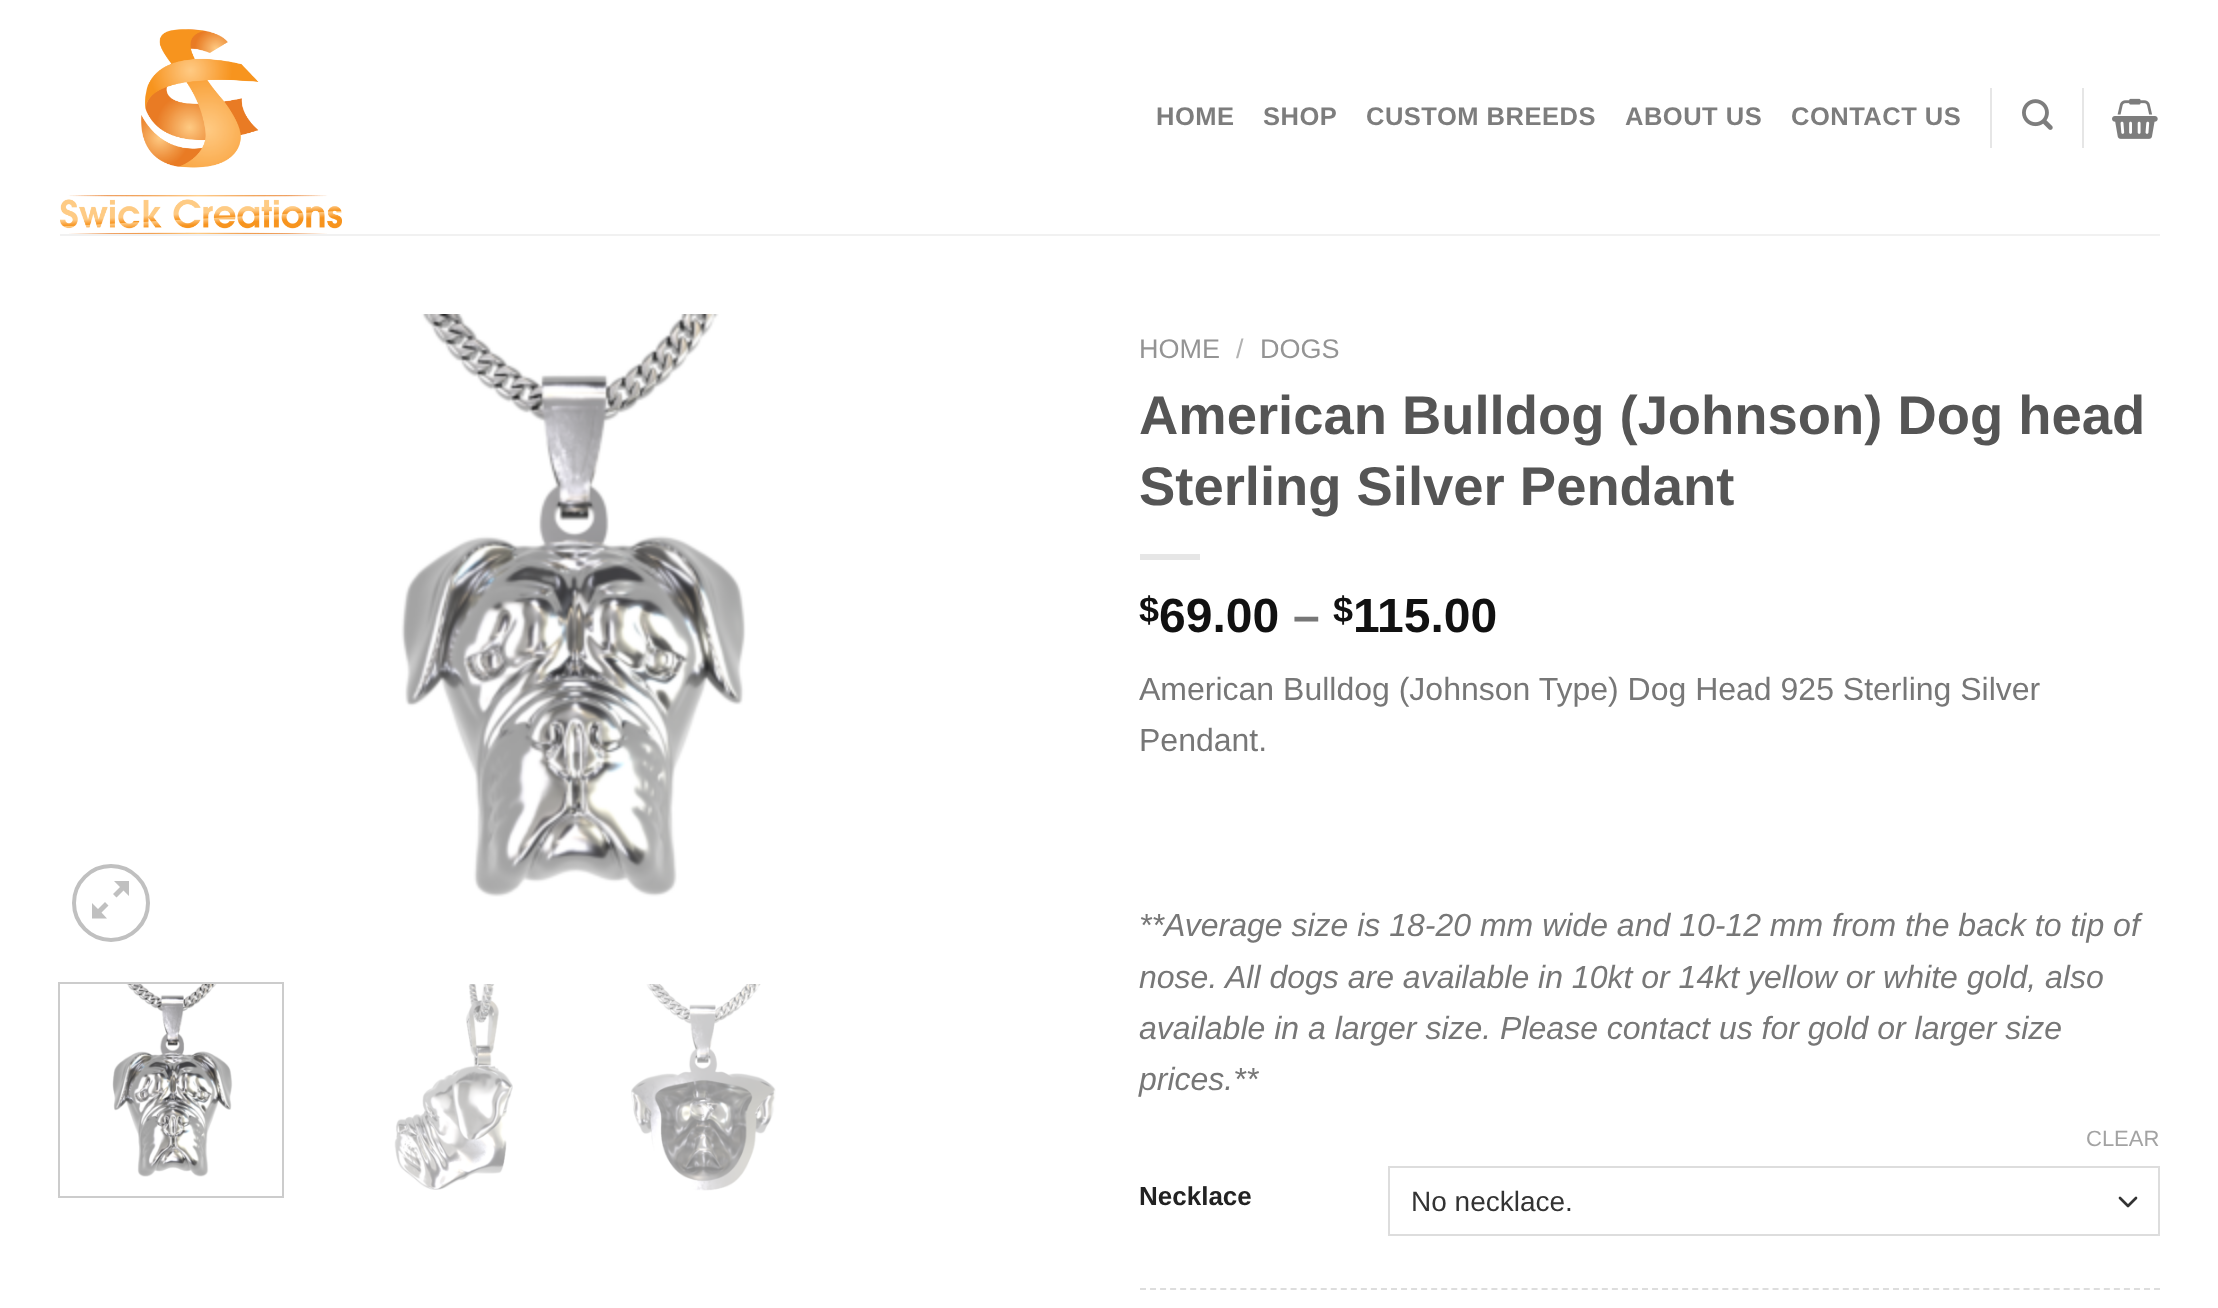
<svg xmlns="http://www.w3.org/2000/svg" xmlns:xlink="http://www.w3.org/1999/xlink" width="2218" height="1308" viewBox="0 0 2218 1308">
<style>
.cls-1{font:bold 25.5px Liberation Sans;letter-spacing:0.5px;fill:#7d7d7d}
.cls-2{font:27px Liberation Sans;fill:#949494}
.cls-3{font:27px Liberation Sans;fill:#b2b2b2}
.cls-4{font:bold 54.4px Liberation Sans;fill:#555555}
.cls-5{font:bold 36px Liberation Sans;fill:#111111}
.cls-6{font:bold 48px Liberation Sans;fill:#111111}
.cls-7{font:bold 48px Liberation Sans;fill:#777777}
.cls-8{font:32px Liberation Sans;fill:#777777}
.cls-9{font:italic 32px Liberation Sans;fill:#777777}
.cls-10{font:bold 26px Liberation Sans;fill:#222222}
.cls-11{font:22px Liberation Sans;fill:#a3a3a3}
.cls-12{font:28px Liberation Sans;fill:#333333}
</style>
<rect width="100%" height="100%" fill="#ffffff"/>
<image xlink:href="image0.png" x="60" y="29" width="282" height="205"/>
<rect fill="#e6e6e6" x="1990" y="88" width="2" height="60"/>
<image xlink:href="image1.png" x="2022" y="99" width="31" height="31"/>
<rect fill="#e6e6e6" x="2082" y="88" width="2" height="60"/>
<image xlink:href="image2.png" x="2112" y="98" width="46" height="41"/>
<rect fill="#f1f1f1" x="60" y="234" width="2100" height="2"/>
<circle fill="none" stroke="#c0c0c0" stroke-width="4" cx="111" cy="903" r="37"/>
<path fill="#c0c0c0" d="M129 881V896L123.5 890.5L116.5 897.5L113 894L120 887L114 881ZM108.5 905.5L101.5 912.5L107 918.5H92V903L98 909L105 902Z"/>
<image xlink:href="image3.png" x="401" y="314" width="345" height="583"/>
<rect fill="none" stroke="#cccccc" stroke-width="2" x="59" y="983" width="224" height="214"/>
<image xlink:href="image4.png" x="112" y="984" width="121" height="193"/>
<image xlink:href="image5.png" x="394" y="984" width="119" height="206"/>
<image xlink:href="image6.png" x="631" y="984" width="145" height="207"/>
<rect fill="#e6e6e6" x="1140" y="554" width="60" height="6"/>
<path fill="none" stroke="#333333" stroke-width="2.7" stroke-linecap="round" stroke-linejoin="round" d="M2120 1198L2128 1206L2136 1198"/>
<rect fill="none" stroke="#dddddd" stroke-width="2" x="1389" y="1167" width="770" height="68"/>
<path fill="none" stroke="#dddddd" stroke-width="2" stroke-dasharray="6 4.04" d="M1140 1289H2160"/>
<text class="cls-1" x="1156" y="125">HOME</text>
<text class="cls-1" x="1263" y="125">SHOP</text>
<text class="cls-1" x="1366" y="125">CUSTOM BREEDS</text>
<text class="cls-1" x="1625" y="125">ABOUT US</text>
<text class="cls-1" x="1791" y="125">CONTACT US</text>
<text class="cls-2" x="1139" y="358">HOME</text>
<text class="cls-3" x="1236" y="358">/</text>
<text class="cls-2" x="1260" y="358">DOGS</text>
<text class="cls-4"><tspan x="1139" y="434">American Bulldog (Johnson) Dog head</tspan><tspan x="1139" y="505">Sterling Silver Pendant</tspan></text>
<text class="cls-5" x="1139" y="622">$</text>
<text class="cls-6" x="1159" y="632">69.00</text>
<text class="cls-7" x="1293" y="632">–</text>
<text class="cls-5" x="1333" y="622">$</text>
<text class="cls-6" x="1353" y="632">115.00</text>
<text class="cls-8"><tspan x="1139" y="700">American Bulldog (Johnson Type) Dog Head 925 Sterling Silver</tspan><tspan x="1139" y="751">Pendant.</tspan></text>
<text class="cls-9"><tspan x="1139" y="936">**Average size is 18-20 mm wide and 10-12 mm from the back to tip of</tspan><tspan x="1139" y="988">nose. All dogs are available in 10kt or 14kt yellow or white gold, also</tspan><tspan x="1139" y="1039">available in a larger size. Please contact us for gold or larger size</tspan><tspan x="1139" y="1090">prices.**</tspan></text>
<text class="cls-10" x="1139" y="1205">Necklace</text>
<text class="cls-11" x="2086" y="1146">CLEAR</text>
<text class="cls-12" x="1411" y="1211">No necklace.</text>
</svg>
